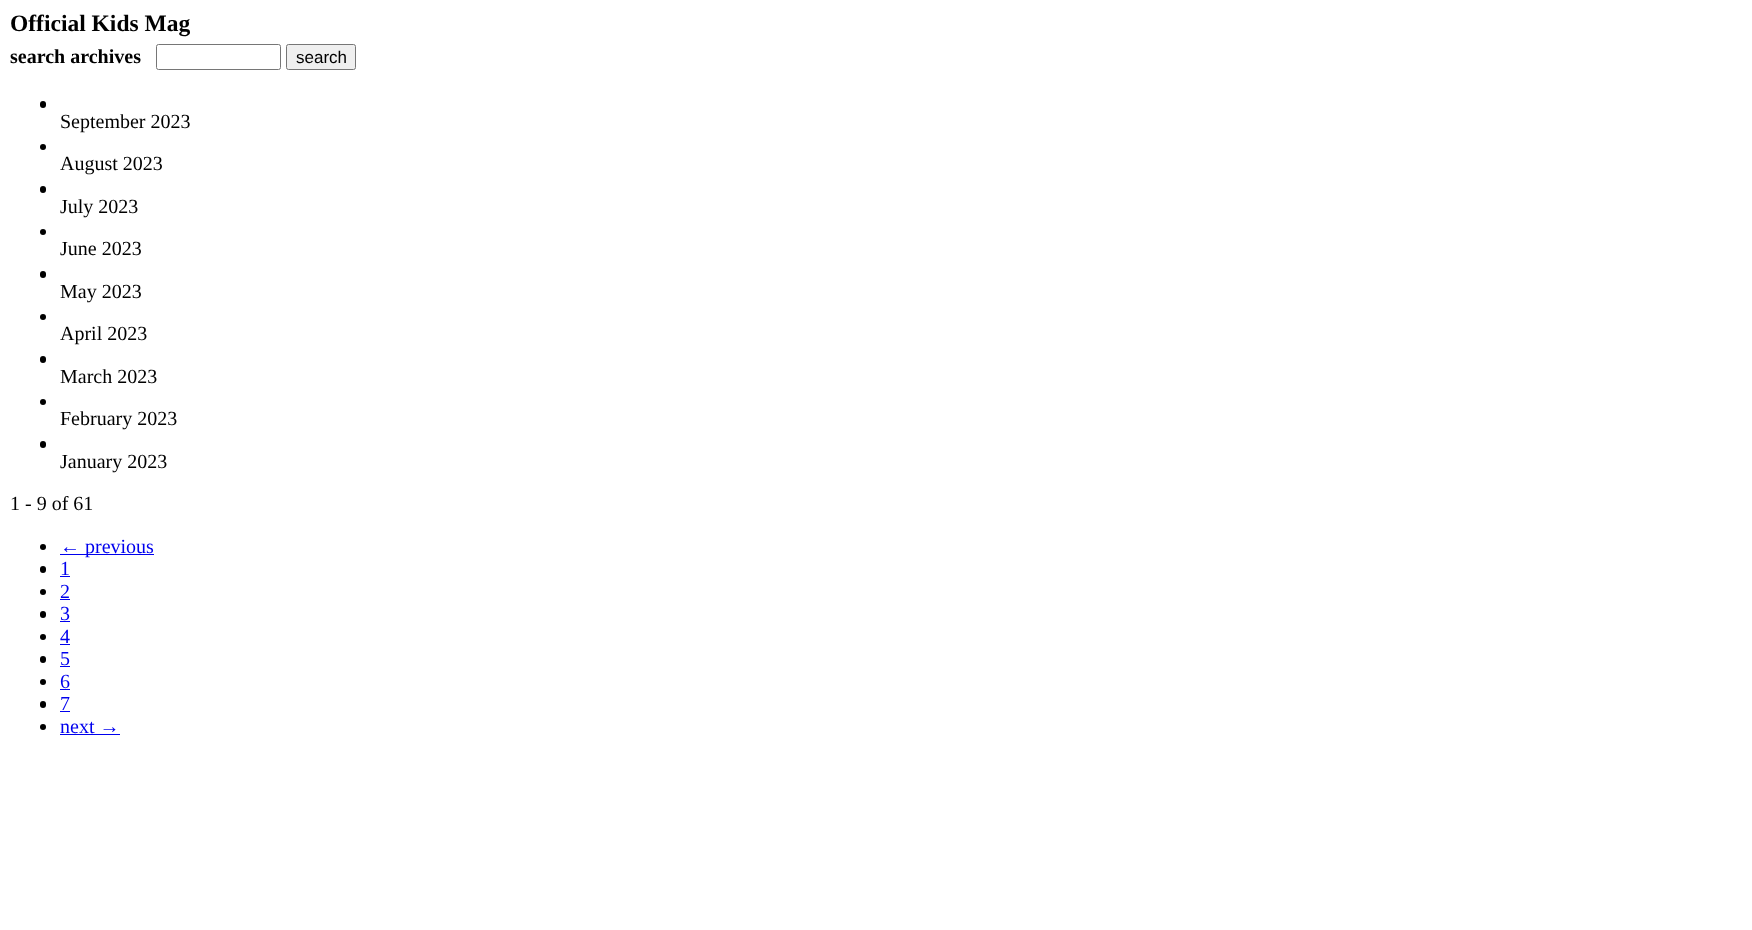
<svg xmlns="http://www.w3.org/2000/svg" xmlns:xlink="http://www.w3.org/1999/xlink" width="1752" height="930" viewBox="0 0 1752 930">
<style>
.cls-1{font:bold 23.5px Liberation Serif;fill:#000000}
.cls-2{font:bold 20px Liberation Serif;fill:#000000}
.cls-3{font:17px Liberation Sans;fill:#000000}
.cls-4{font:20px Liberation Serif;fill:#000000}
.cls-5{font:20px Liberation Serif;fill:#0000ee}
</style>
<rect width="100%" height="100%" fill="#ffffff"/>
<rect fill="none" stroke="#767676" x="156.5" y="44.5" width="124" height="25" rx="2"/>
<rect fill="#efefef" stroke="#767676" x="286.5" y="44.5" width="69" height="25" rx="2"/>
<rect fill="#000000" x="40" y="101" width="6" height="7" rx="3"/>
<circle fill="#000000" cx="43" cy="147" r="3"/>
<rect fill="#000000" x="40" y="186" width="6" height="7" rx="3"/>
<circle fill="#000000" cx="43" cy="232" r="3"/>
<rect fill="#000000" x="40" y="271" width="6" height="7" rx="3"/>
<circle fill="#000000" cx="43" cy="317" r="3"/>
<rect fill="#000000" x="40" y="356" width="6" height="7" rx="3"/>
<circle fill="#000000" cx="43" cy="402" r="3"/>
<rect fill="#000000" x="40" y="441" width="6" height="7" rx="3"/>
<circle fill="#000000" cx="43" cy="547" r="3"/>
<rect fill="#0000ee" x="60" y="554" width="94" height="1"/>
<rect fill="#000000" x="40" y="566" width="6" height="7" rx="3"/>
<rect fill="#0000ee" x="60" y="576" width="10" height="1"/>
<circle fill="#000000" cx="43" cy="592" r="3"/>
<rect fill="#0000ee" x="60" y="599" width="10" height="1"/>
<rect fill="#000000" x="40" y="611" width="6" height="7" rx="3"/>
<rect fill="#0000ee" x="60" y="621" width="10" height="1"/>
<circle fill="#000000" cx="43" cy="637" r="3"/>
<rect fill="#0000ee" x="60" y="644" width="10" height="1"/>
<rect fill="#000000" x="40" y="656" width="6" height="7" rx="3"/>
<rect fill="#0000ee" x="60" y="666" width="10" height="1"/>
<circle fill="#000000" cx="43" cy="682" r="3"/>
<rect fill="#0000ee" x="60" y="689" width="10" height="1"/>
<rect fill="#000000" x="40" y="701" width="6" height="7" rx="3"/>
<rect fill="#0000ee" x="60" y="711" width="10" height="1"/>
<circle fill="#000000" cx="43" cy="727" r="3"/>
<rect fill="#0000ee" x="60" y="734" width="60" height="1"/>
<text class="cls-1" x="10" y="31">Official Kids Mag</text>
<text class="cls-2" x="10" y="63">search archives</text>
<text class="cls-3" x="296" y="63">search</text>
<text class="cls-4" x="60" y="128">September 2023</text>
<text class="cls-4" x="60" y="170">August 2023</text>
<text class="cls-4" x="60" y="213">July 2023</text>
<text class="cls-4" x="60" y="255">June 2023</text>
<text class="cls-4" x="60" y="298">May 2023</text>
<text class="cls-4" x="60" y="340">April 2023</text>
<text class="cls-4" x="60" y="383">March 2023</text>
<text class="cls-4" x="60" y="425">February 2023</text>
<text class="cls-4" x="60" y="468">January 2023</text>
<text class="cls-4" x="10" y="510">1 - 9 of 61</text>
<text class="cls-5"><tspan x="60" y="553">← previous</tspan><tspan x="60" y="575">1</tspan><tspan x="60" y="598">2</tspan><tspan x="60" y="620">3</tspan><tspan x="60" y="643">4</tspan><tspan x="60" y="665">5</tspan><tspan x="60" y="688">6</tspan><tspan x="60" y="710">7</tspan><tspan x="60" y="733">next →</tspan></text>
</svg>
